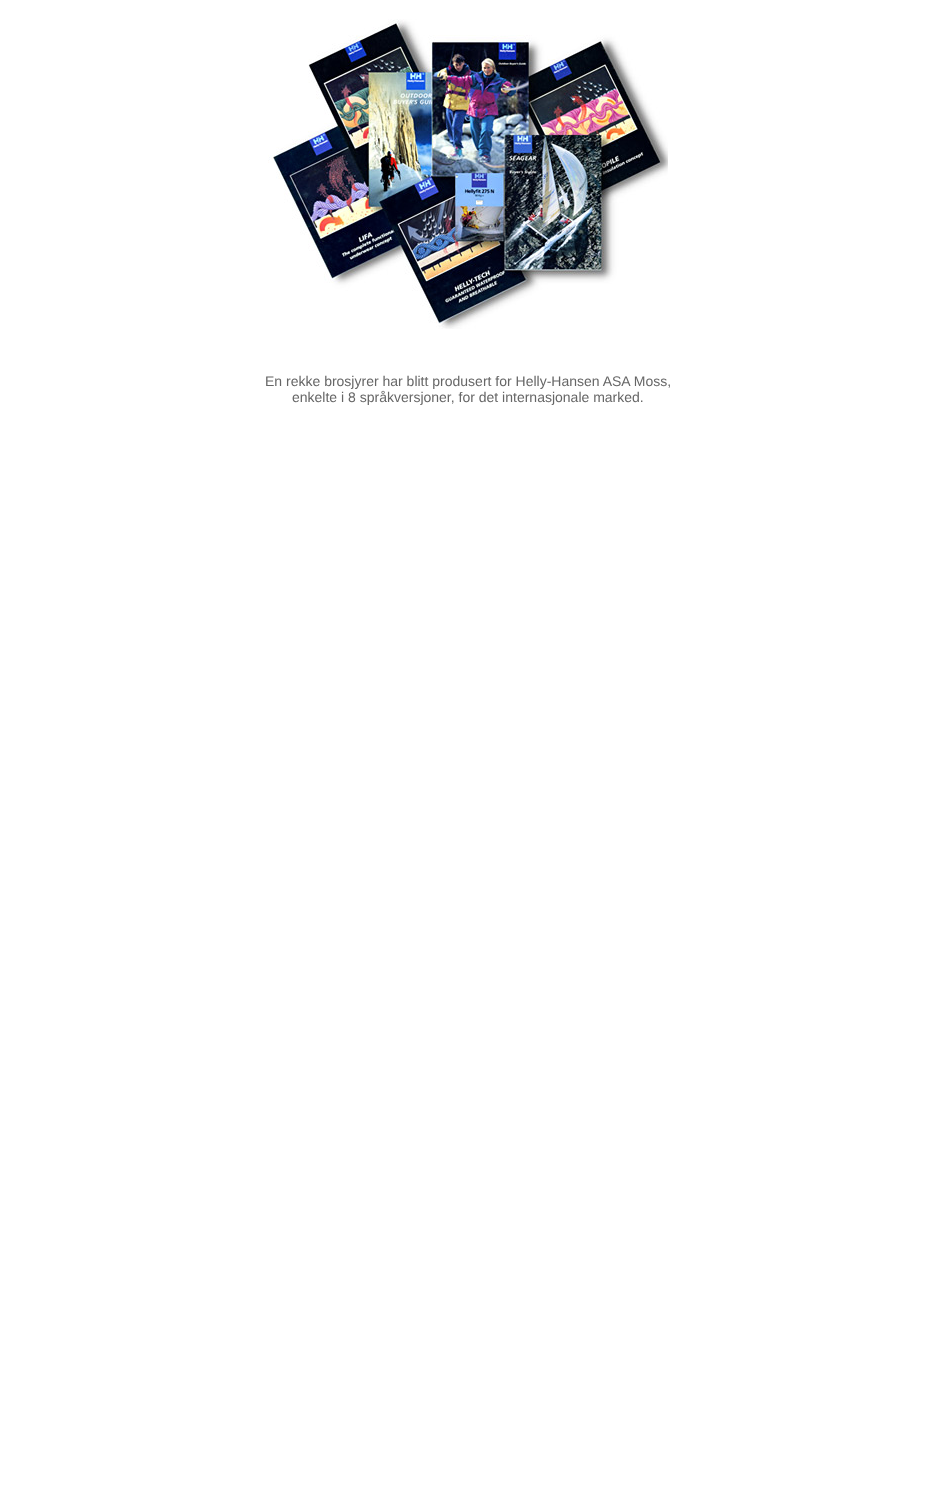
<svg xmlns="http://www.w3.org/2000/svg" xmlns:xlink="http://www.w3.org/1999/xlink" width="936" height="1487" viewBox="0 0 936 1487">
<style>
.cls-1{font:14px Liberation Sans;fill:#666666}
</style>
<rect width="100%" height="100%" fill="#ffffff"/>
<image xlink:href="image0.png" x="268" y="19" width="400" height="310"/>
<text class="cls-1" x="265" y="386">En rekke brosjyrer har blitt produsert for Helly-Hansen ASA Moss,</text>
<text class="cls-1" x="292" y="402">enkelte i 8 språkversjoner, for det internasjonale marked.</text>
</svg>
